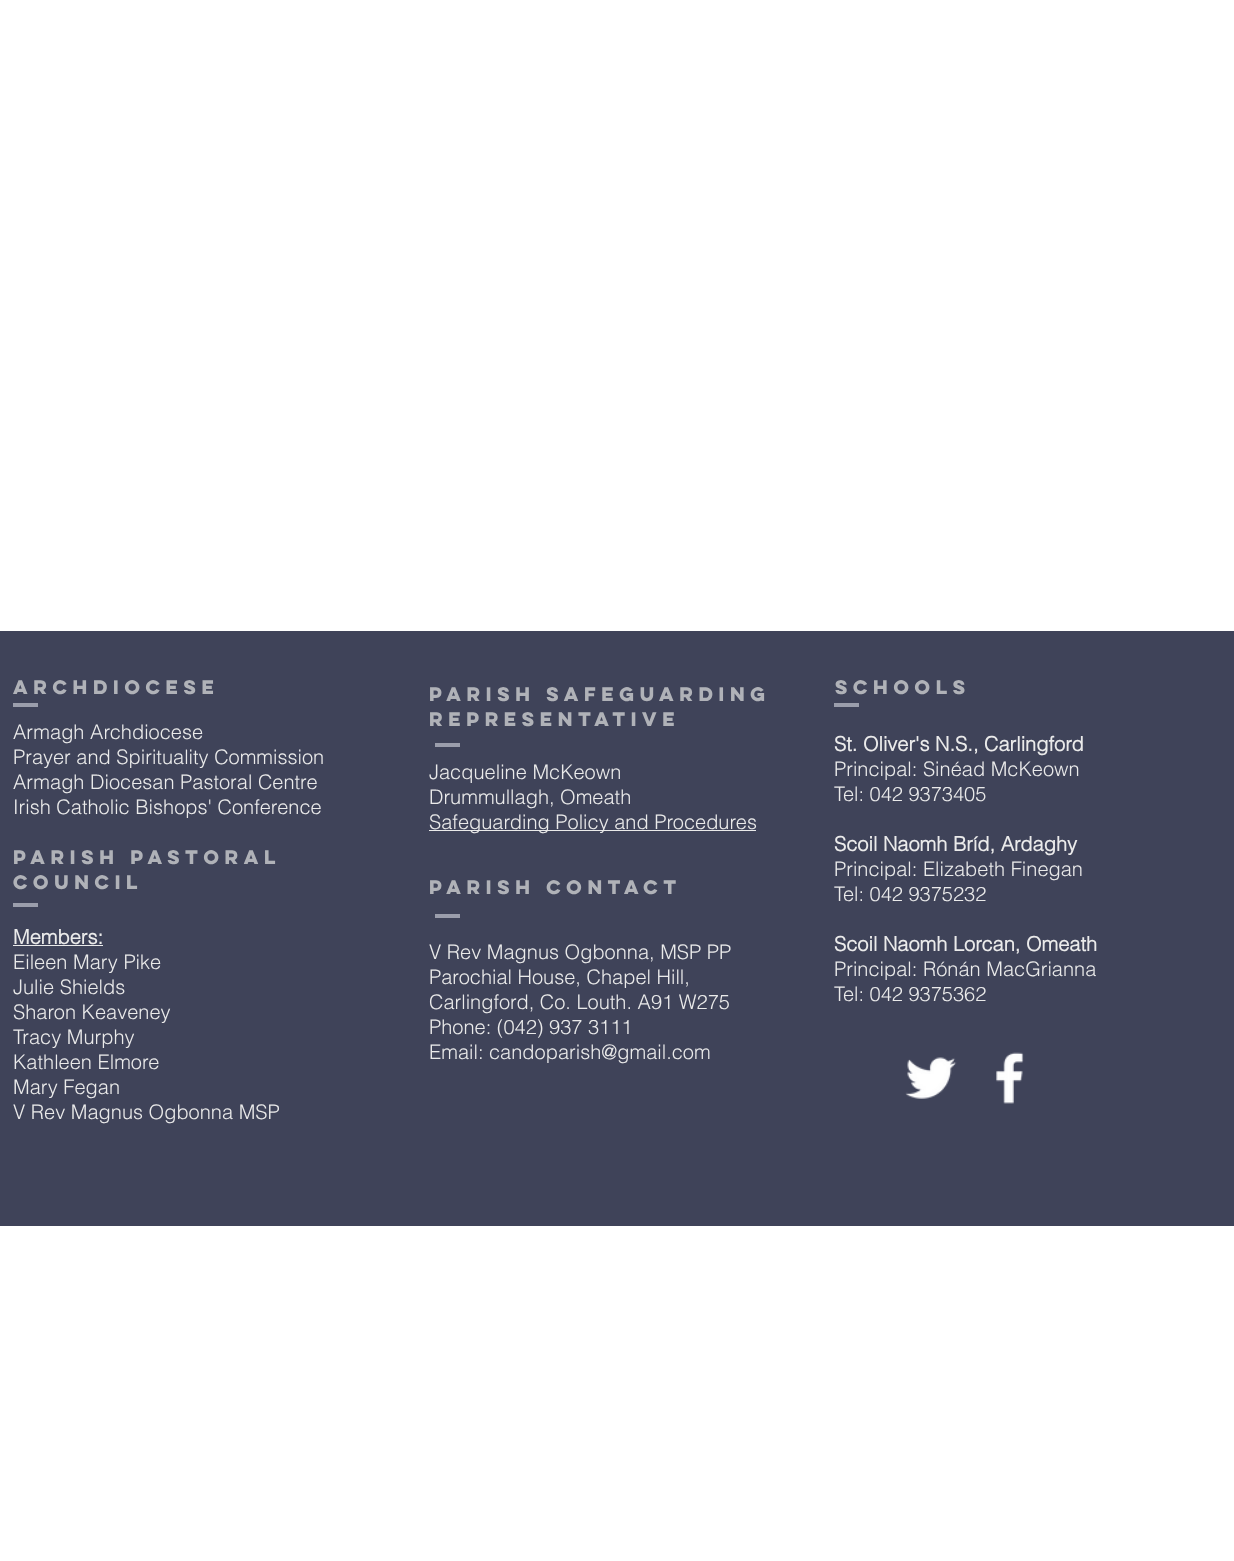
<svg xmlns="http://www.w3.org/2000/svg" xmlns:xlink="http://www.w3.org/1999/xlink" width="1234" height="1561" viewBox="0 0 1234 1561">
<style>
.cls-1{font:bold 17.5px 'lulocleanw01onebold';letter-spacing:1.75px;fill:#b0b2b8}
.cls-2{font:300 20px helvetica;fill:#eaeaea}
.cls-3{font:bold 20px helvetica;fill:#eaeaea}
</style>
<rect width="100%" height="100%" fill="#ffffff"/>
<rect fill="#3f4359" x="0" y="631" width="1234" height="595"/>
<rect fill="#9b9eac" x="13" y="703" width="25" height="4"/>
<rect fill="#9b9eac" x="13" y="903" width="25" height="4"/>
<rect fill="#eaeaea" x="13" y="945" width="90" height="1"/>
<rect fill="#9b9eac" x="435" y="743" width="25" height="4"/>
<rect fill="#eaeaea" x="429" y="830" width="327" height="1"/>
<rect fill="#9b9eac" x="435" y="914" width="25" height="4"/>
<rect fill="#9b9eac" x="834" y="703" width="25" height="4"/>
<image xlink:href="image0.png" x="905" y="1057" width="52" height="42"/>
<image xlink:href="image1.png" x="996" y="1052" width="28" height="52"/>
<text class="cls-1" x="13" y="694">Archdiocese</text>
<text class="cls-2"><tspan x="13" y="739">Armagh Archdiocese</tspan><tspan x="13" y="764">Prayer and Spirituality Commission</tspan><tspan x="13" y="789">Armagh Diocesan Pastoral Centre</tspan><tspan x="13" y="814">Irish Catholic Bishops' Conference</tspan></text>
<text class="cls-1"><tspan x="13" y="864">Parish Pastoral</tspan><tspan x="13" y="889">Council</tspan></text>
<text class="cls-3" x="13" y="944">Members:</text>
<text class="cls-2"><tspan x="13" y="969">Eileen Mary Pike</tspan><tspan x="13" y="994">Julie Shields</tspan><tspan x="13" y="1019">Sharon Keaveney</tspan><tspan x="13" y="1044">Tracy Murphy</tspan><tspan x="13" y="1069">Kathleen Elmore</tspan><tspan x="13" y="1094">Mary Fegan</tspan><tspan x="13" y="1119">V Rev Magnus Ogbonna MSP</tspan></text>
<text class="cls-1"><tspan x="429" y="701">Parish Safeguarding</tspan><tspan x="429" y="726">Representative</tspan></text>
<text class="cls-2"><tspan x="429" y="779">Jacqueline McKeown</tspan><tspan x="429" y="804">Drummullagh, Omeath</tspan><tspan x="429" y="829">Safeguarding Policy and Procedures</tspan></text>
<text class="cls-1" x="429" y="894">Parish contact</text>
<text class="cls-2"><tspan x="429" y="959">V Rev Magnus Ogbonna, MSP PP</tspan><tspan x="429" y="984">Parochial House, Chapel Hill,</tspan><tspan x="429" y="1009">Carlingford, Co. Louth. A91 W275</tspan><tspan x="429" y="1034">Phone: (042) 937 3111</tspan><tspan x="429" y="1059">Email: candoparish@gmail.com</tspan></text>
<text class="cls-1" x="835" y="694">schools</text>
<text class="cls-3" x="834" y="751">St. Oliver's N.S., Carlingford</text>
<text class="cls-2"><tspan x="834" y="776">Principal: Sinéad McKeown</tspan><tspan x="834" y="801">Tel: 042 9373405</tspan></text>
<text class="cls-3" x="834" y="851">Scoil Naomh Bríd, Ardaghy</text>
<text class="cls-2"><tspan x="834" y="876">Principal: Elizabeth Finegan</tspan><tspan x="834" y="901">Tel: 042 9375232</tspan></text>
<text class="cls-3" x="834" y="951">Scoil Naomh Lorcan, Omeath</text>
<text class="cls-2"><tspan x="834" y="976">Principal: Rónán MacGrianna</tspan><tspan x="834" y="1001">Tel: 042 9375362</tspan></text>
</svg>
